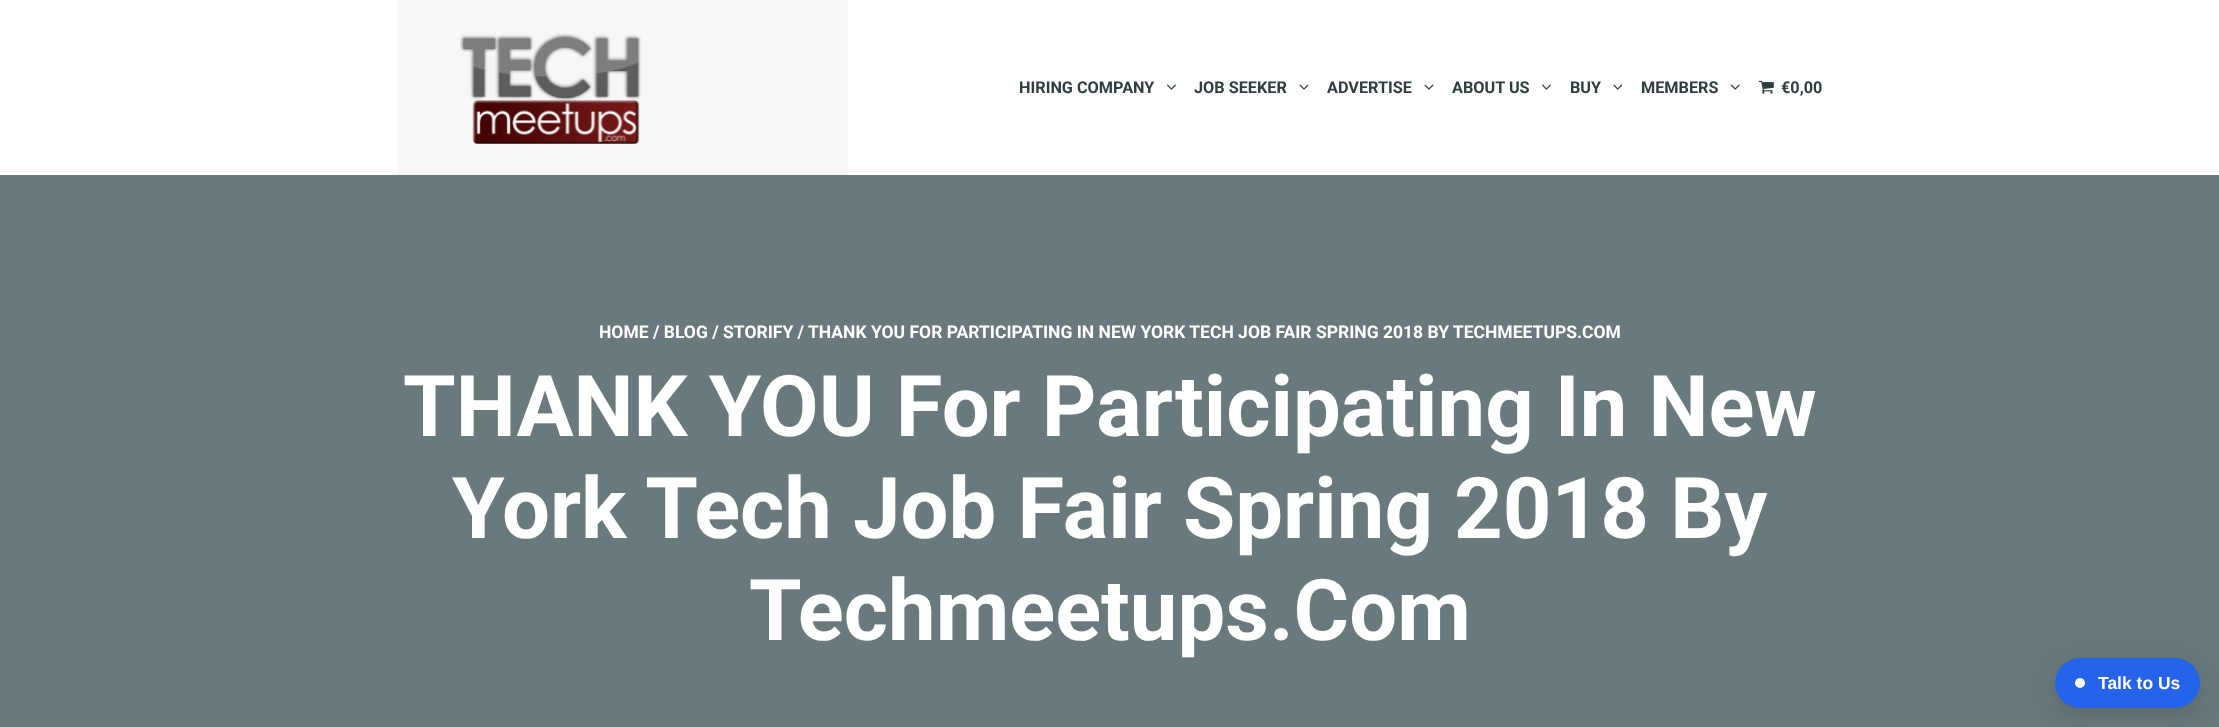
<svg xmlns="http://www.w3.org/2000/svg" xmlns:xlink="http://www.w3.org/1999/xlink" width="2219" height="727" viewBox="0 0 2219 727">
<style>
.cls-1{font:bold 16.25px Roboto;fill:#2e3e40}
.cls-2{font:bold 17.5px Roboto;fill:#ffffff}
.cls-3{font:bold 85px Roboto;fill:#ffffff}
.cls-4{font:bold 17.5px Liberation Sans;fill:#ffffff}
</style>
<rect width="100%" height="100%" fill="#ffffff"/>
<rect fill="#f7f7f7" x="398" y="0" width="450" height="175"/>
<image xlink:href="image0.png" x="460" y="33" width="182" height="111"/>
<image xlink:href="image1.png" x="1167" y="84" width="9" height="6"/>
<image xlink:href="image2.png" x="1299" y="84" width="10" height="6"/>
<image xlink:href="image2.png" x="1424" y="84" width="10" height="6"/>
<image xlink:href="image1.png" x="1542" y="84" width="9" height="6"/>
<image xlink:href="image3.png" x="1613" y="84" width="10" height="6"/>
<image xlink:href="image4.png" x="1730" y="84" width="10" height="6"/>
<image xlink:href="image5.png" x="1758" y="80" width="16" height="14"/>
<rect fill="#6a7a7c" x="0" y="175" width="2219" height="552"/>
<rect fill="#000000" fill-opacity="0.15" filter="blur(12.5px)" x="2055" y="665" width="145" height="50" rx="25"/>
<rect fill="#2563eb" x="2055" y="658" width="145" height="50" rx="25"/>
<circle fill="#ffffff" cx="2080" cy="683" r="5"/>
<text class="cls-1" x="1019" y="93">HIRING COMPANY</text>
<text class="cls-1" x="1194" y="93">JOB SEEKER</text>
<text class="cls-1" x="1327" y="93">ADVERTISE</text>
<text class="cls-1" x="1452" y="93">ABOUT US</text>
<text class="cls-1" x="1570" y="93">BUY</text>
<text class="cls-1" x="1641" y="93">MEMBERS</text>
<text class="cls-1" x="1781" y="93">€0,00</text>
<text class="cls-2" x="599" y="338">HOME / BLOG / STORIFY /</text>
<text class="cls-2" x="808" y="338">THANK YOU FOR PARTICIPATING IN NEW YORK TECH JOB FAIR SPRING 2018 BY TECHMEETUPS.COM</text>
<text class="cls-3" x="403" y="436">THANK YOU For Participating In New</text>
<text class="cls-3" x="452" y="538">York Tech Job Fair Spring 2018 By</text>
<text class="cls-3" x="749" y="640">Techmeetups.Com</text>
<text class="cls-4" x="2098" y="689">Talk to Us</text>
</svg>
